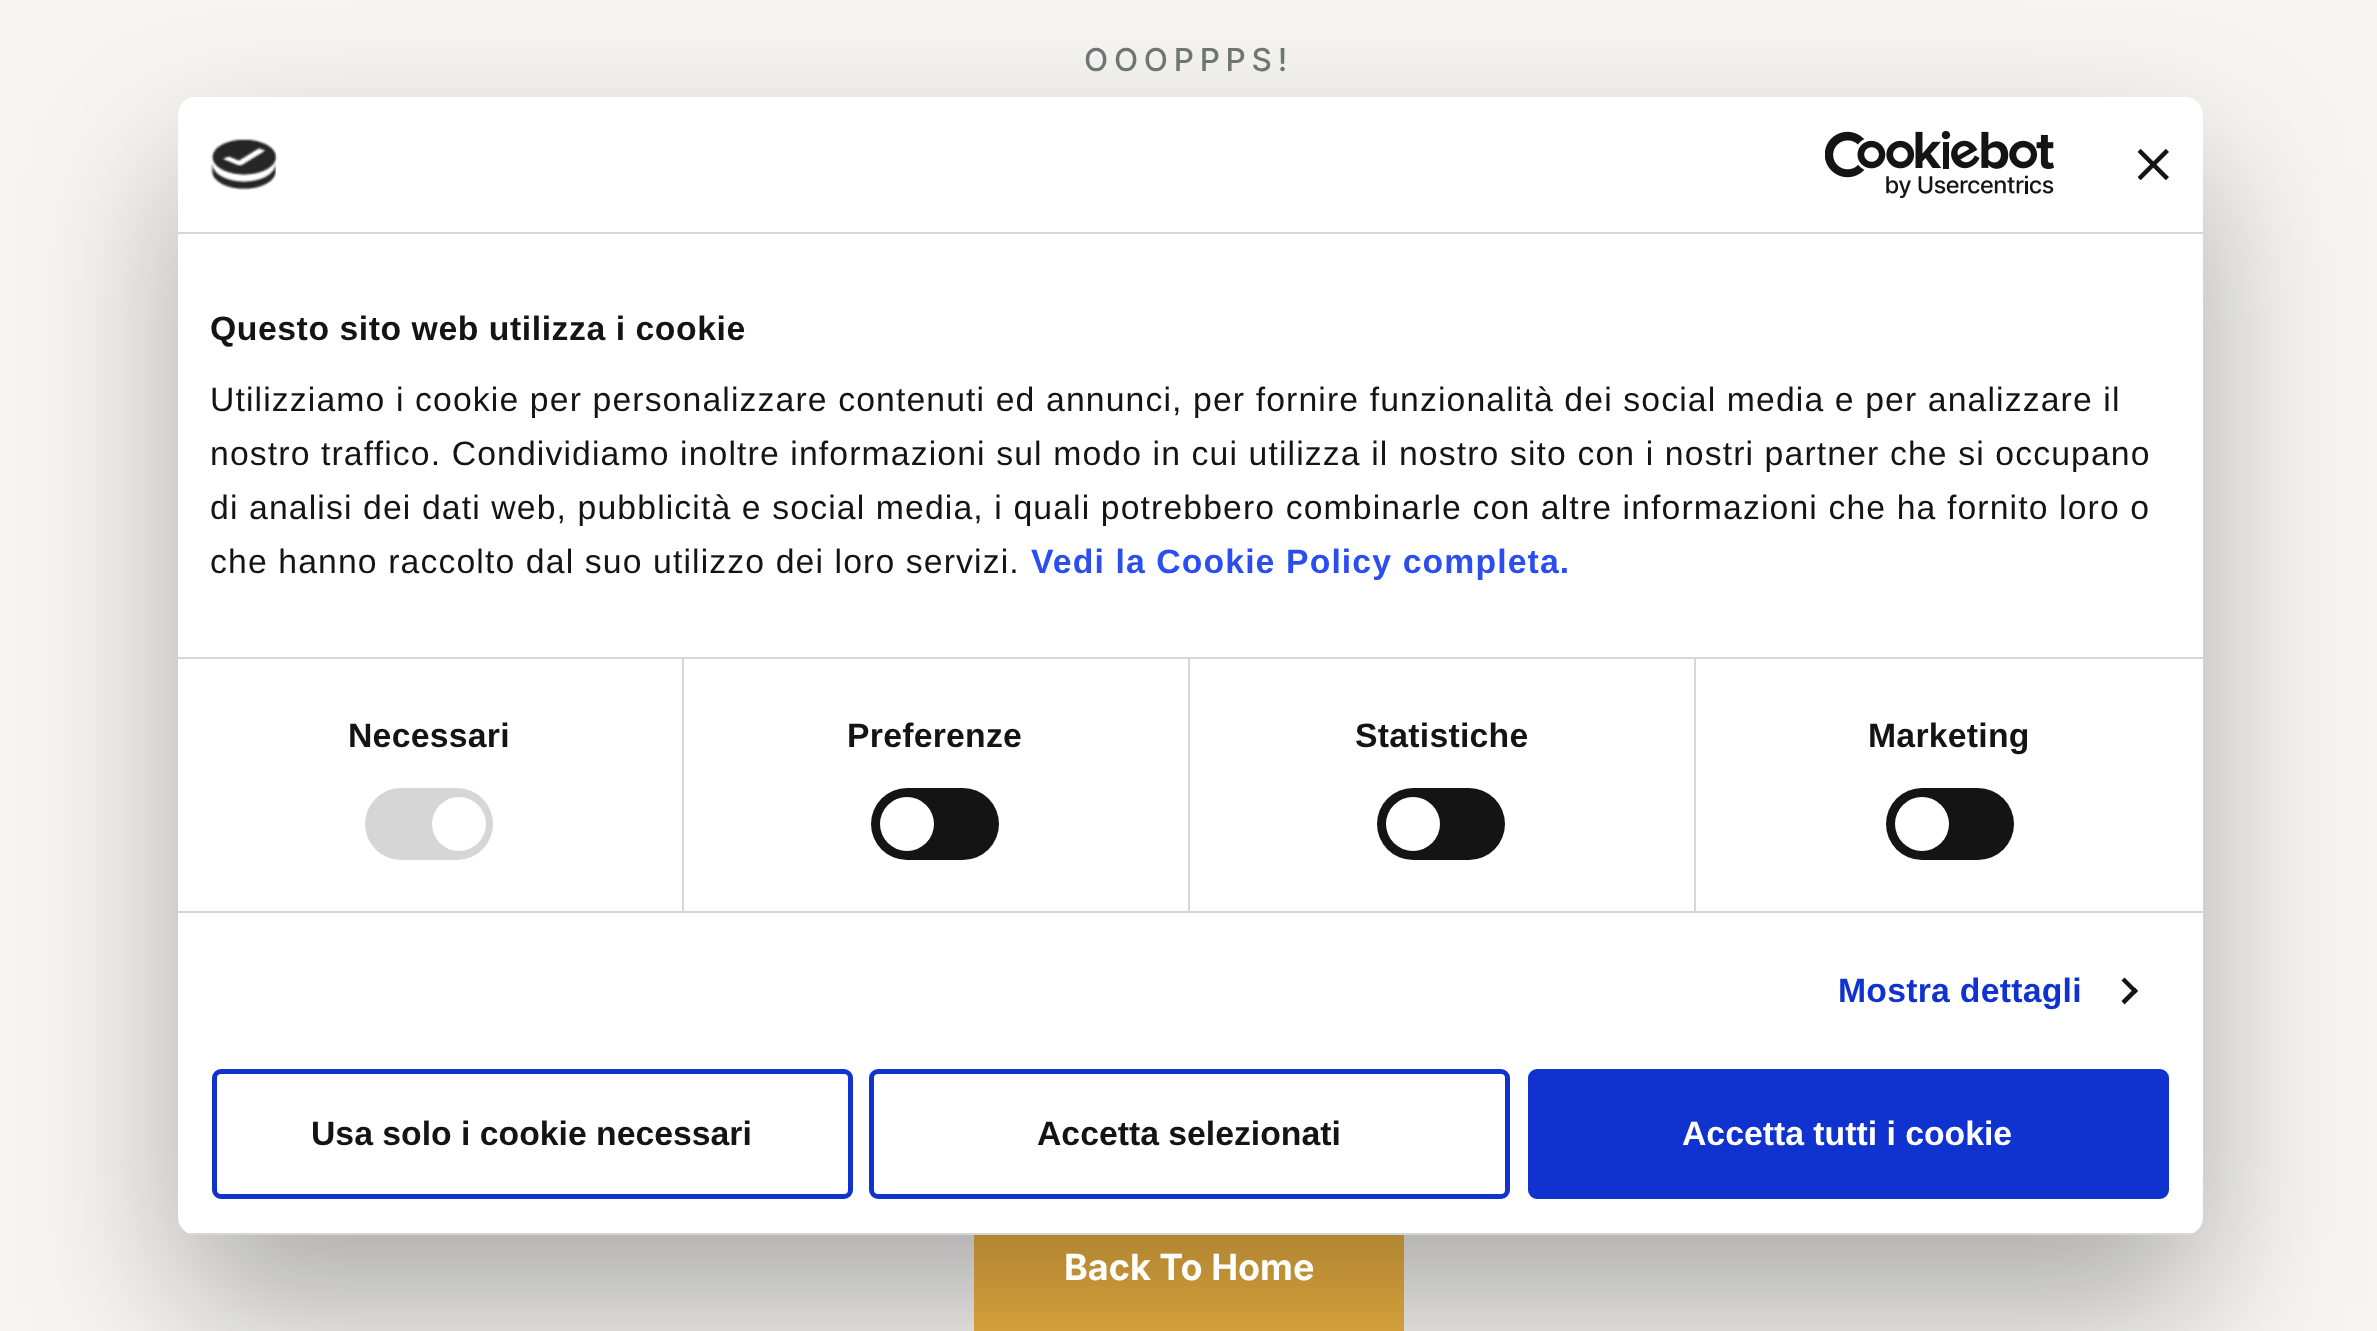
<svg xmlns="http://www.w3.org/2000/svg" xmlns:xlink="http://www.w3.org/1999/xlink" width="2377" height="1331" viewBox="0 0 2377 1331">
<style>
.cls-1{font:500 31.5px Inter;letter-spacing:5.75px;fill:#6e7673}
.cls-2{font:bold 36px Inter;fill:#ffffff}
.cls-3{font:bold 33.75px Liberation Sans;letter-spacing:0.55px;fill:#141414}
.cls-4{font:33.75px Liberation Sans;letter-spacing:1.12px;fill:#141414}
.cls-5{font:bold 33.75px Liberation Sans;letter-spacing:1.12px;fill:#2a4eef}
.cls-6{font:bold 33.75px Liberation Sans;letter-spacing:0.25px;fill:#141414}
.cls-7{font:bold 33.75px Liberation Sans;letter-spacing:0.25px;fill:#1032cf}
.cls-8{font:bold 33.75px Liberation Sans;fill:#141414}
.cls-9{font:bold 33.75px Liberation Sans;fill:#ffffff}
</style>
<defs>
<clipPath id="clip1"><rect x="178" y="97" width="2025" height="1138" rx="18"/></clipPath>
</defs>
<rect width="100%" height="100%" fill="#f6f5f2"/>
<rect fill="#efb443" x="974" y="1235" width="430" height="96"/>
<rect fill="#000000" fill-opacity="0.3" filter="blur(76.5px)" x="178" y="169" width="2025" height="1138" rx="18"/>
<rect fill="#ffffff" x="178" y="97" width="2025" height="1138" rx="18"/>
<rect fill="#d6d6d6" x="178" y="232" width="2025" height="2"/>
<image xlink:href="image0.png" x="210" y="138" width="68" height="52"/>
<image xlink:href="image1.png" x="1825" y="131" width="229" height="67"/>
<image xlink:href="image2.png" x="2138" y="149" width="31" height="31"/>
<rect fill="#d6d6d6" x="178" y="657" width="2025" height="2"/>
<rect fill="#d6d6d6" x="178" y="911" width="2025" height="2"/>
<rect fill="#d6d6d6" x="682" y="659" width="2" height="252"/>
<rect fill="#d6d6d6" x="365" y="788" width="128" height="72" rx="36"/>
<circle fill="#ffffff" cx="459" cy="824" r="27"/>
<rect fill="#d6d6d6" x="1188" y="659" width="2" height="252"/>
<rect fill="#141414" x="871" y="788" width="128" height="72" rx="36"/>
<circle fill="#ffffff" cx="907" cy="824" r="27"/>
<rect fill="#d6d6d6" x="1694" y="659" width="2" height="252"/>
<rect fill="#141414" x="1377" y="788" width="128" height="72" rx="36"/>
<circle fill="#ffffff" cx="1413" cy="824" r="27"/>
<rect fill="#141414" x="1886" y="788" width="128" height="72" rx="36"/>
<circle fill="#ffffff" cx="1922" cy="824" r="27"/>
<path fill="#141414" d="M2124.5 977.5L2138 991L2135 994L2121.5 980.5Z"/>
<path fill="#141414" d="M2135 987.5L2138 991L2124.5 1004.5L2121.5 1001Z"/>
<g clip-path="url(#clip1)">
<rect fill="#d6d6d6" x="188" y="1233" width="2005" height="2"/>
</g>
<rect fill="none" stroke="#1032cf" stroke-width="5" x="214.5" y="1071.5" width="636" height="125" rx="6.5"/>
<rect fill="none" stroke="#1032cf" stroke-width="5" x="871.5" y="1071.5" width="636" height="125" rx="6.5"/>
<rect fill="#1032cf" stroke="#1032cf" stroke-width="5" x="1530.5" y="1071.5" width="636" height="125" rx="6.5"/>
<text class="cls-1" x="1084" y="71">OOOPPPS!</text>
<text class="cls-2" x="1064" y="1280">Back To Home</text>
<text class="cls-3" x="210" y="340">Questo sito web utilizza i cookie</text>
<text class="cls-4"><tspan x="210" y="411">Utilizziamo i cookie per personalizzare contenuti ed annunci, per fornire funzionalità dei social media e per analizzare il</tspan><tspan x="210" y="465">nostro traffico. Condividiamo inoltre informazioni sul modo in cui utilizza il nostro sito con i nostri partner che si occupano</tspan><tspan x="210" y="519">di analisi dei dati web, pubblicità e social media, i quali potrebbero combinarle con altre informazioni che ha fornito loro o</tspan><tspan x="210" y="573">che hanno raccolto dal suo utilizzo dei loro servizi.</tspan></text>
<text class="cls-5" x="1031" y="573">Vedi la Cookie Policy completa.</text>
<text class="cls-6" x="348" y="747">Necessari</text>
<text class="cls-6" x="847" y="747">Preferenze</text>
<text class="cls-6" x="1355" y="747">Statistiche</text>
<text class="cls-6" x="1868" y="747">Marketing</text>
<text class="cls-7" x="1838" y="1002">Mostra dettagli</text>
<text class="cls-8" x="311" y="1145">Usa solo i cookie necessari</text>
<text class="cls-8" x="1037" y="1145">Accetta selezionati</text>
<text class="cls-9" x="1682" y="1145">Accetta tutti i cookie</text>
</svg>
